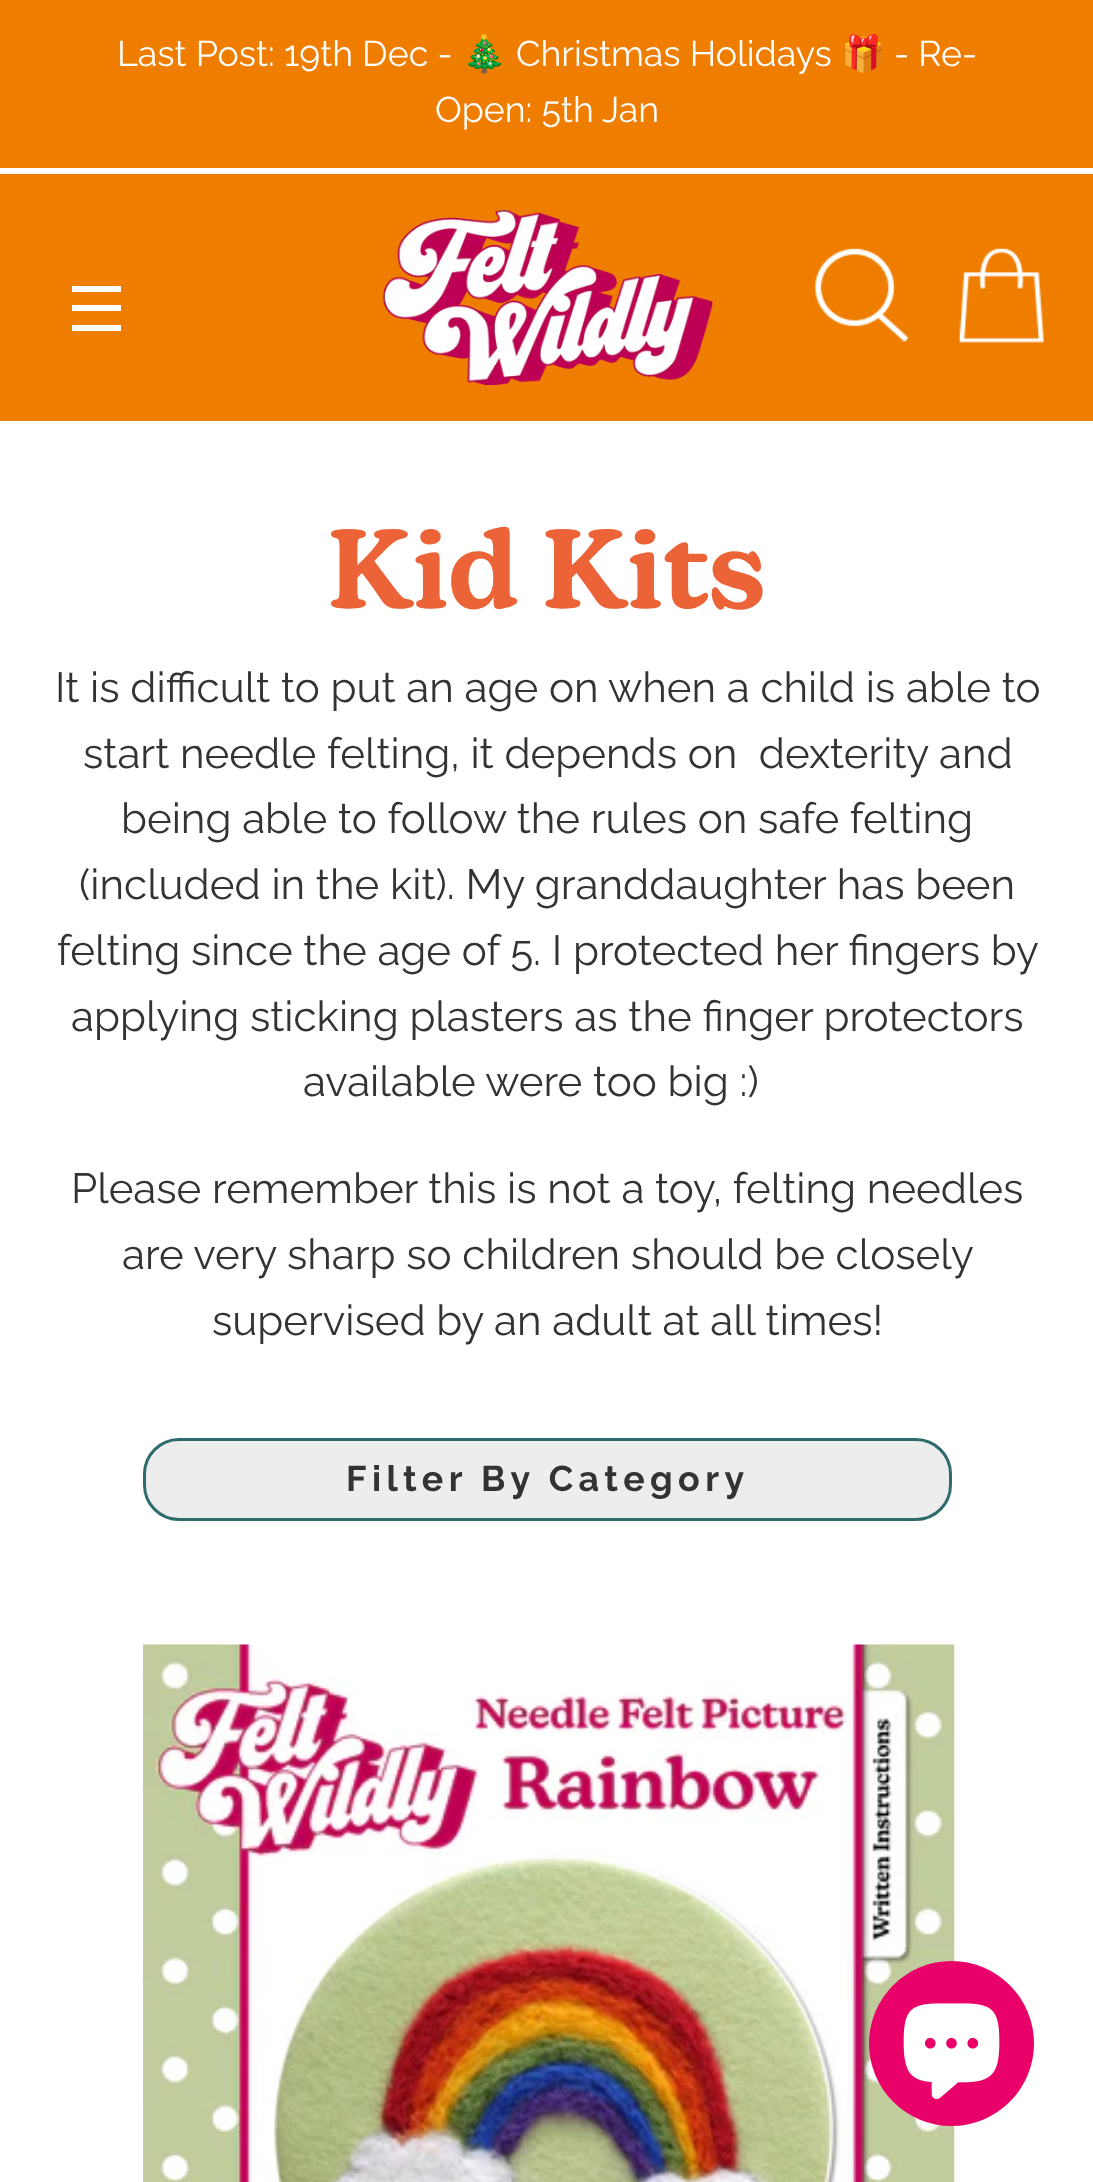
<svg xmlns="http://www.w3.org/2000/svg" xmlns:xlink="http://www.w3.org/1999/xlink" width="1093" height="2182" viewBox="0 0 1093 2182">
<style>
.cls-1{font:35.75px Raleway;fill:#ffffff}
.cls-2{font:35.75px Noto Color Emoji;fill:#ffffff}
.cls-3{font:600 110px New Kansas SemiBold;fill:#ec6338}
.cls-4{font:42.1px Raleway;fill:#333333}
.cls-5{font:bold 35.75px Raleway;letter-spacing:5.4px;fill:#333333}
</style>
<rect width="100%" height="100%" fill="#ffffff"/>
<rect fill="#ef7d00" x="0" y="0" width="1093" height="168"/>
<rect fill="#ef7d00" x="0" y="174" width="1093" height="247"/>
<rect fill="#ffffff" x="72" y="286" width="49" height="6"/>
<rect fill="#ffffff" x="72" y="305" width="49" height="6"/>
<rect fill="#ffffff" x="72" y="325" width="49" height="6"/>
<image xlink:href="image0.png" x="383" y="210" width="330" height="175"/>
<image xlink:href="image1.png" x="815" y="248" width="94" height="95"/>
<image xlink:href="image2.png" x="959" y="248" width="85" height="95"/>
<rect fill="#ededed" stroke="#2d6b6c" stroke-width="3" x="144.5" y="1439.5" width="806" height="80" rx="34.5"/>
<image xlink:href="image3.png" x="143" y="1644" width="812" height="538"/>
<circle fill="#e90068" cx="951.5" cy="2043.5" r="82.5"/>
<image xlink:href="image4.png" x="903" y="2003" width="97" height="96"/>
<text class="cls-1" x="117" y="66">Last Post: 19th Dec -</text>
<text class="cls-2" x="462" y="66">🎄</text>
<text class="cls-1" x="516" y="66">Christmas Holidays</text>
<text class="cls-2" x="841" y="66">🎁</text>
<text class="cls-1" x="894" y="66">- Re-</text>
<text class="cls-1" x="435" y="122">Open: 5th Jan</text>
<text class="cls-3" x="328" y="608">Kid Kits</text>
<text class="cls-4" x="55" y="702">It is difficult to put an age on when a child is able to</text>
<text class="cls-4" xml:space="preserve" x="83" y="768">start needle felting, it depends on  dexterity and</text>
<text class="cls-4" x="121" y="833">being able to follow the rules on safe felting</text>
<text class="cls-4" x="79" y="899">(included in the kit). My granddaughter has been</text>
<text class="cls-4" x="57" y="965">felting since the age of 5. I protected her fingers by</text>
<text class="cls-4" x="71" y="1031">applying sticking plasters as the finger protectors</text>
<text class="cls-4" x="303" y="1096">available were too big :)</text>
<text class="cls-4" x="71" y="1203">Please remember this is not a toy, felting needles</text>
<text class="cls-4" x="122" y="1269">are very sharp so children should be closely</text>
<text class="cls-4" x="212" y="1335">supervised by an adult at all times!</text>
<text class="cls-5" x="346" y="1491">Filter By Category</text>
</svg>
